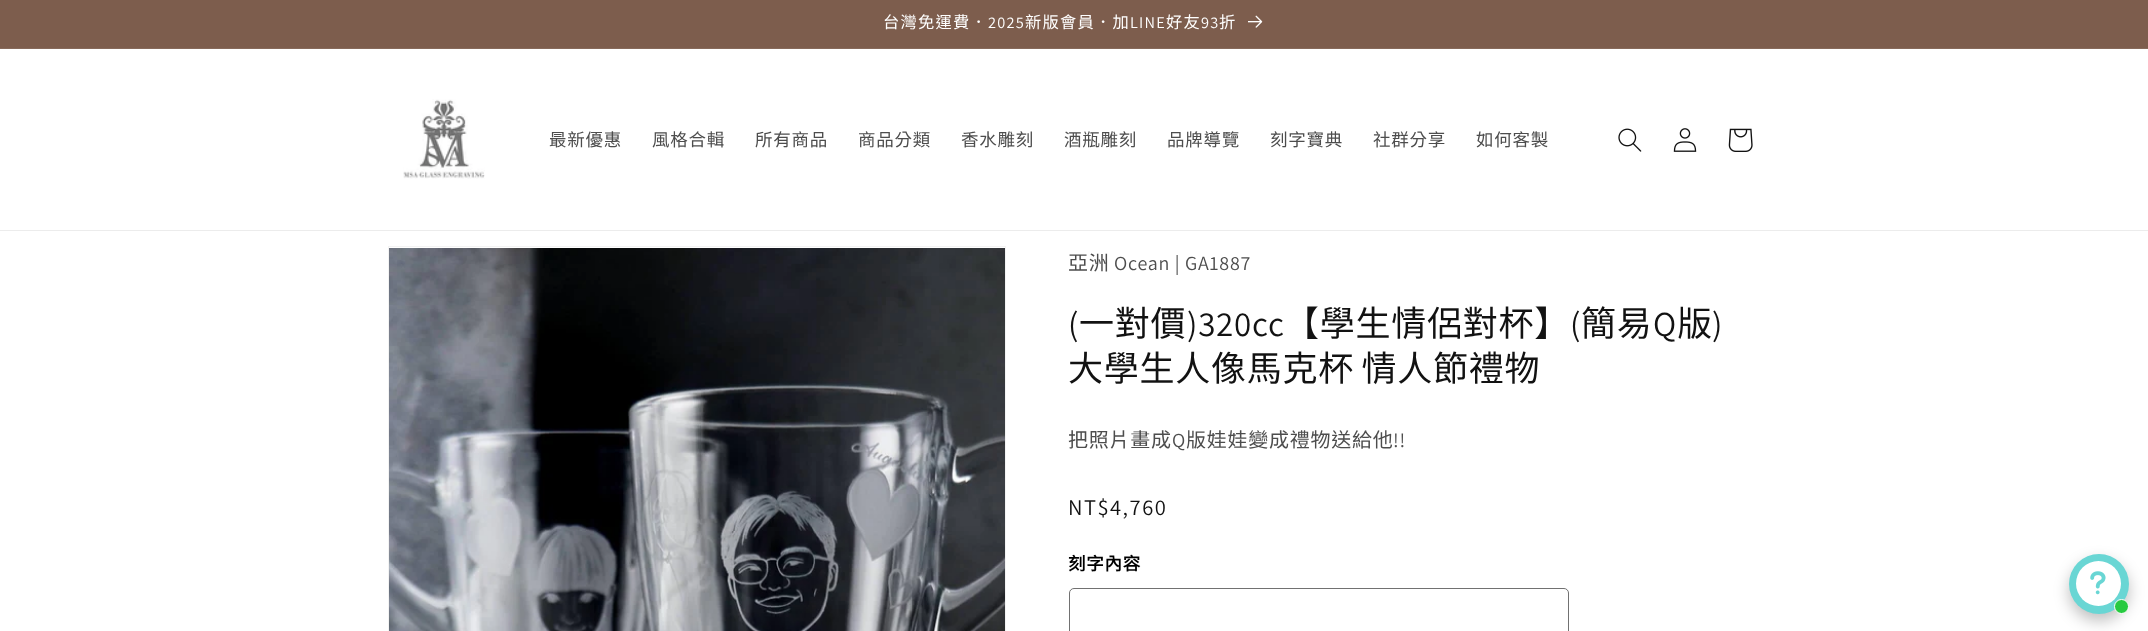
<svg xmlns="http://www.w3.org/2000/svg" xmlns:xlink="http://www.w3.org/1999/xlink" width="2148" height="631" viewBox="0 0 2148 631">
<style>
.cls-1{font:16.25px Noto Sans CJK TC;letter-spacing:1.25px;fill:#ffffff}
.cls-2{font:16.25px Assistant;letter-spacing:1.25px;fill:#ffffff}
.cls-3{font:17.5px Noto Sans CJK TC;letter-spacing:0.75px;fill:#4d4d4d}
.cls-4{font:20px Noto Sans CJK TC;letter-spacing:0.75px;fill:#4d4d4d}
.cls-5{font:20px Assistant;letter-spacing:0.75px;fill:#4d4d4d}
.cls-6{font:35px Assistant;letter-spacing:0.75px;fill:#121212}
.cls-7{font:35px Noto Sans CJK TC;letter-spacing:0.75px;fill:#121212}
.cls-8{font:22.5px Assistant;letter-spacing:1.5px;fill:#121212}
.cls-9{font:bold 17.5px Noto Sans CJK TC;letter-spacing:0.75px;fill:#000000}
</style>
<rect width="100%" height="100%" fill="#ffffff"/>
<rect fill="#7d5d4d" x="0" y="0" width="2148" height="48"/>
<rect fill="#876a5b" x="0" y="48" width="2148" height="1"/>
<image xlink:href="image0.png" x="1248" y="15" width="15" height="13"/>
<rect fill="#ececec" x="0" y="230" width="2148" height="1"/>
<image xlink:href="image1.png" x="403" y="99" width="82" height="80"/>
<image xlink:href="image2.png" x="1618" y="128" width="24" height="24"/>
<image xlink:href="image3.png" x="1673" y="128" width="24" height="24"/>
<image xlink:href="image4.png" x="1728" y="128" width="25" height="24"/>
<rect fill="none" stroke="#f3f3f3" x="388.5" y="246.5" width="617" height="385"/>
<image xlink:href="image5.png" x="389" y="248" width="616" height="383"/>
<rect fill="none" stroke="#717171" x="1069.5" y="588.5" width="499" height="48" rx="4.5"/>
<rect fill="#000000" fill-opacity="0.25" filter="blur(7.5px)" x="2069" y="561" width="60" height="60" rx="30"/>
<circle fill="#69d6d4" cx="2099" cy="584" r="30"/>
<circle fill="#ffffff" cx="2098.5" cy="583.5" r="22.5"/>
<image xlink:href="image6.png" x="2090" y="571" width="16" height="24"/>
<circle fill="#27ca40" stroke="#ffffff" cx="2121.5" cy="606.5" r="7"/>
<text class="cls-1" x="883" y="28">台灣免運費．</text>
<text class="cls-2" x="988" y="28">2025</text>
<text class="cls-1" x="1025" y="28">新版會員．加</text>
<text class="cls-2" x="1130" y="28">LINE</text>
<text class="cls-1" x="1166" y="28">好友</text>
<text class="cls-2" x="1201" y="28">93</text>
<text class="cls-1" x="1219" y="28">折</text>
<text class="cls-3" x="549" y="146">最新優惠</text>
<text class="cls-3" x="652" y="146">風格合輯</text>
<text class="cls-3" x="755" y="146">所有商品</text>
<text class="cls-3" x="858" y="146">商品分類</text>
<text class="cls-3" x="961" y="146">香水雕刻</text>
<text class="cls-3" x="1064" y="146">酒瓶雕刻</text>
<text class="cls-3" x="1167" y="146">品牌導覽</text>
<text class="cls-3" x="1270" y="146">刻字寶典</text>
<text class="cls-3" x="1373" y="146">社群分享</text>
<text class="cls-3" x="1476" y="146">如何客製</text>
<text class="cls-4" x="1068" y="270">亞洲</text>
<text class="cls-5" x="1114" y="270">Ocean | GA1887</text>
<text class="cls-6" x="1068" y="336">(</text>
<text class="cls-7" x="1079" y="336">一對價</text>
<text class="cls-6" x="1187" y="336">)320cc</text>
<text class="cls-7" x="1284" y="336">【學生情侶對杯】</text>
<text class="cls-6" x="1570" y="336">(</text>
<text class="cls-7" x="1581" y="336">簡易</text>
<text class="cls-6" x="1653" y="336">Q</text>
<text class="cls-7" x="1677" y="336">版</text>
<text class="cls-6" x="1712" y="336">)</text>
<text class="cls-7" x="1068" y="381" word-spacing="-1">大學生人像馬克杯 情人節禮物</text>
<text class="cls-4" x="1068" y="447">把照片畫成</text>
<text class="cls-5" x="1172" y="447">Q</text>
<text class="cls-4" x="1186" y="447">版娃娃變成禮物送給他</text>
<text class="cls-5" x="1393" y="447">!!</text>
<text class="cls-8" x="1068" y="515">NT$4,760</text>
<text class="cls-9" x="1068" y="570">刻字內容</text>
</svg>
